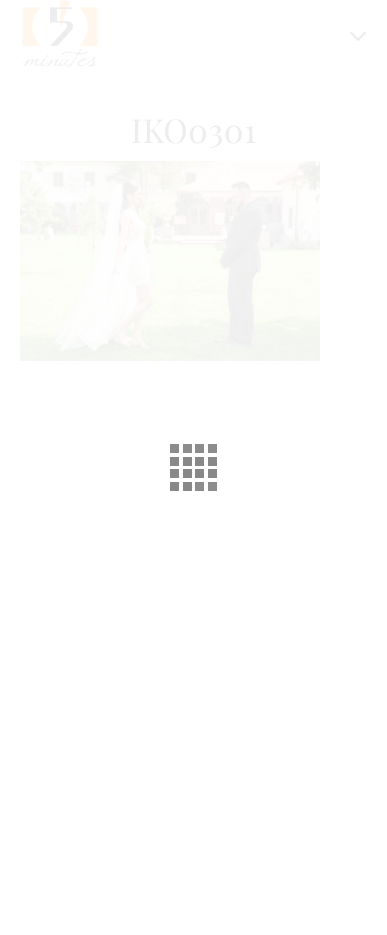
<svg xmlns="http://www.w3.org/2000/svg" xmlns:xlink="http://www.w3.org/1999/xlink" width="387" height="935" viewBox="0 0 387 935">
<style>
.cls-1{font:33px Playfair Display;letter-spacing:0.5px;fill:#ededed}
</style>
<rect width="100%" height="100%" fill="#ffffff"/>
<image xlink:href="image0.png" x="20" y="0" width="80" height="74"/>
<image xlink:href="image1.png" x="350" y="31" width="16" height="10"/>
<image xlink:href="image2.png" x="20" y="161" width="300" height="200"/>
<rect fill="#8c8c8c" x="170" y="444" width="9" height="9"/>
<rect fill="#8c8c8c" x="183" y="444" width="9" height="9"/>
<rect fill="#8c8c8c" x="195" y="444" width="9" height="9"/>
<rect fill="#8c8c8c" x="208" y="444" width="9" height="9"/>
<rect fill="#888888" x="170" y="457" width="9" height="9"/>
<rect fill="#888888" x="183" y="457" width="9" height="9"/>
<rect fill="#888888" x="195" y="457" width="9" height="9"/>
<rect fill="#888888" x="208" y="457" width="9" height="9"/>
<rect fill="#888888" x="170" y="469" width="9" height="9"/>
<rect fill="#888888" x="183" y="469" width="9" height="9"/>
<rect fill="#888888" x="195" y="469" width="9" height="9"/>
<rect fill="#888888" x="208" y="469" width="9" height="9"/>
<rect fill="#888888" x="170" y="482" width="9" height="9"/>
<rect fill="#888888" x="183" y="482" width="9" height="9"/>
<rect fill="#333333" fill-opacity="0.56" x="195" y="482" width="9" height="9"/>
<rect fill="#333333" fill-opacity="0.56" x="208" y="482" width="9" height="9"/>
<text class="cls-1" x="131" y="143">IKO0301</text>
</svg>
